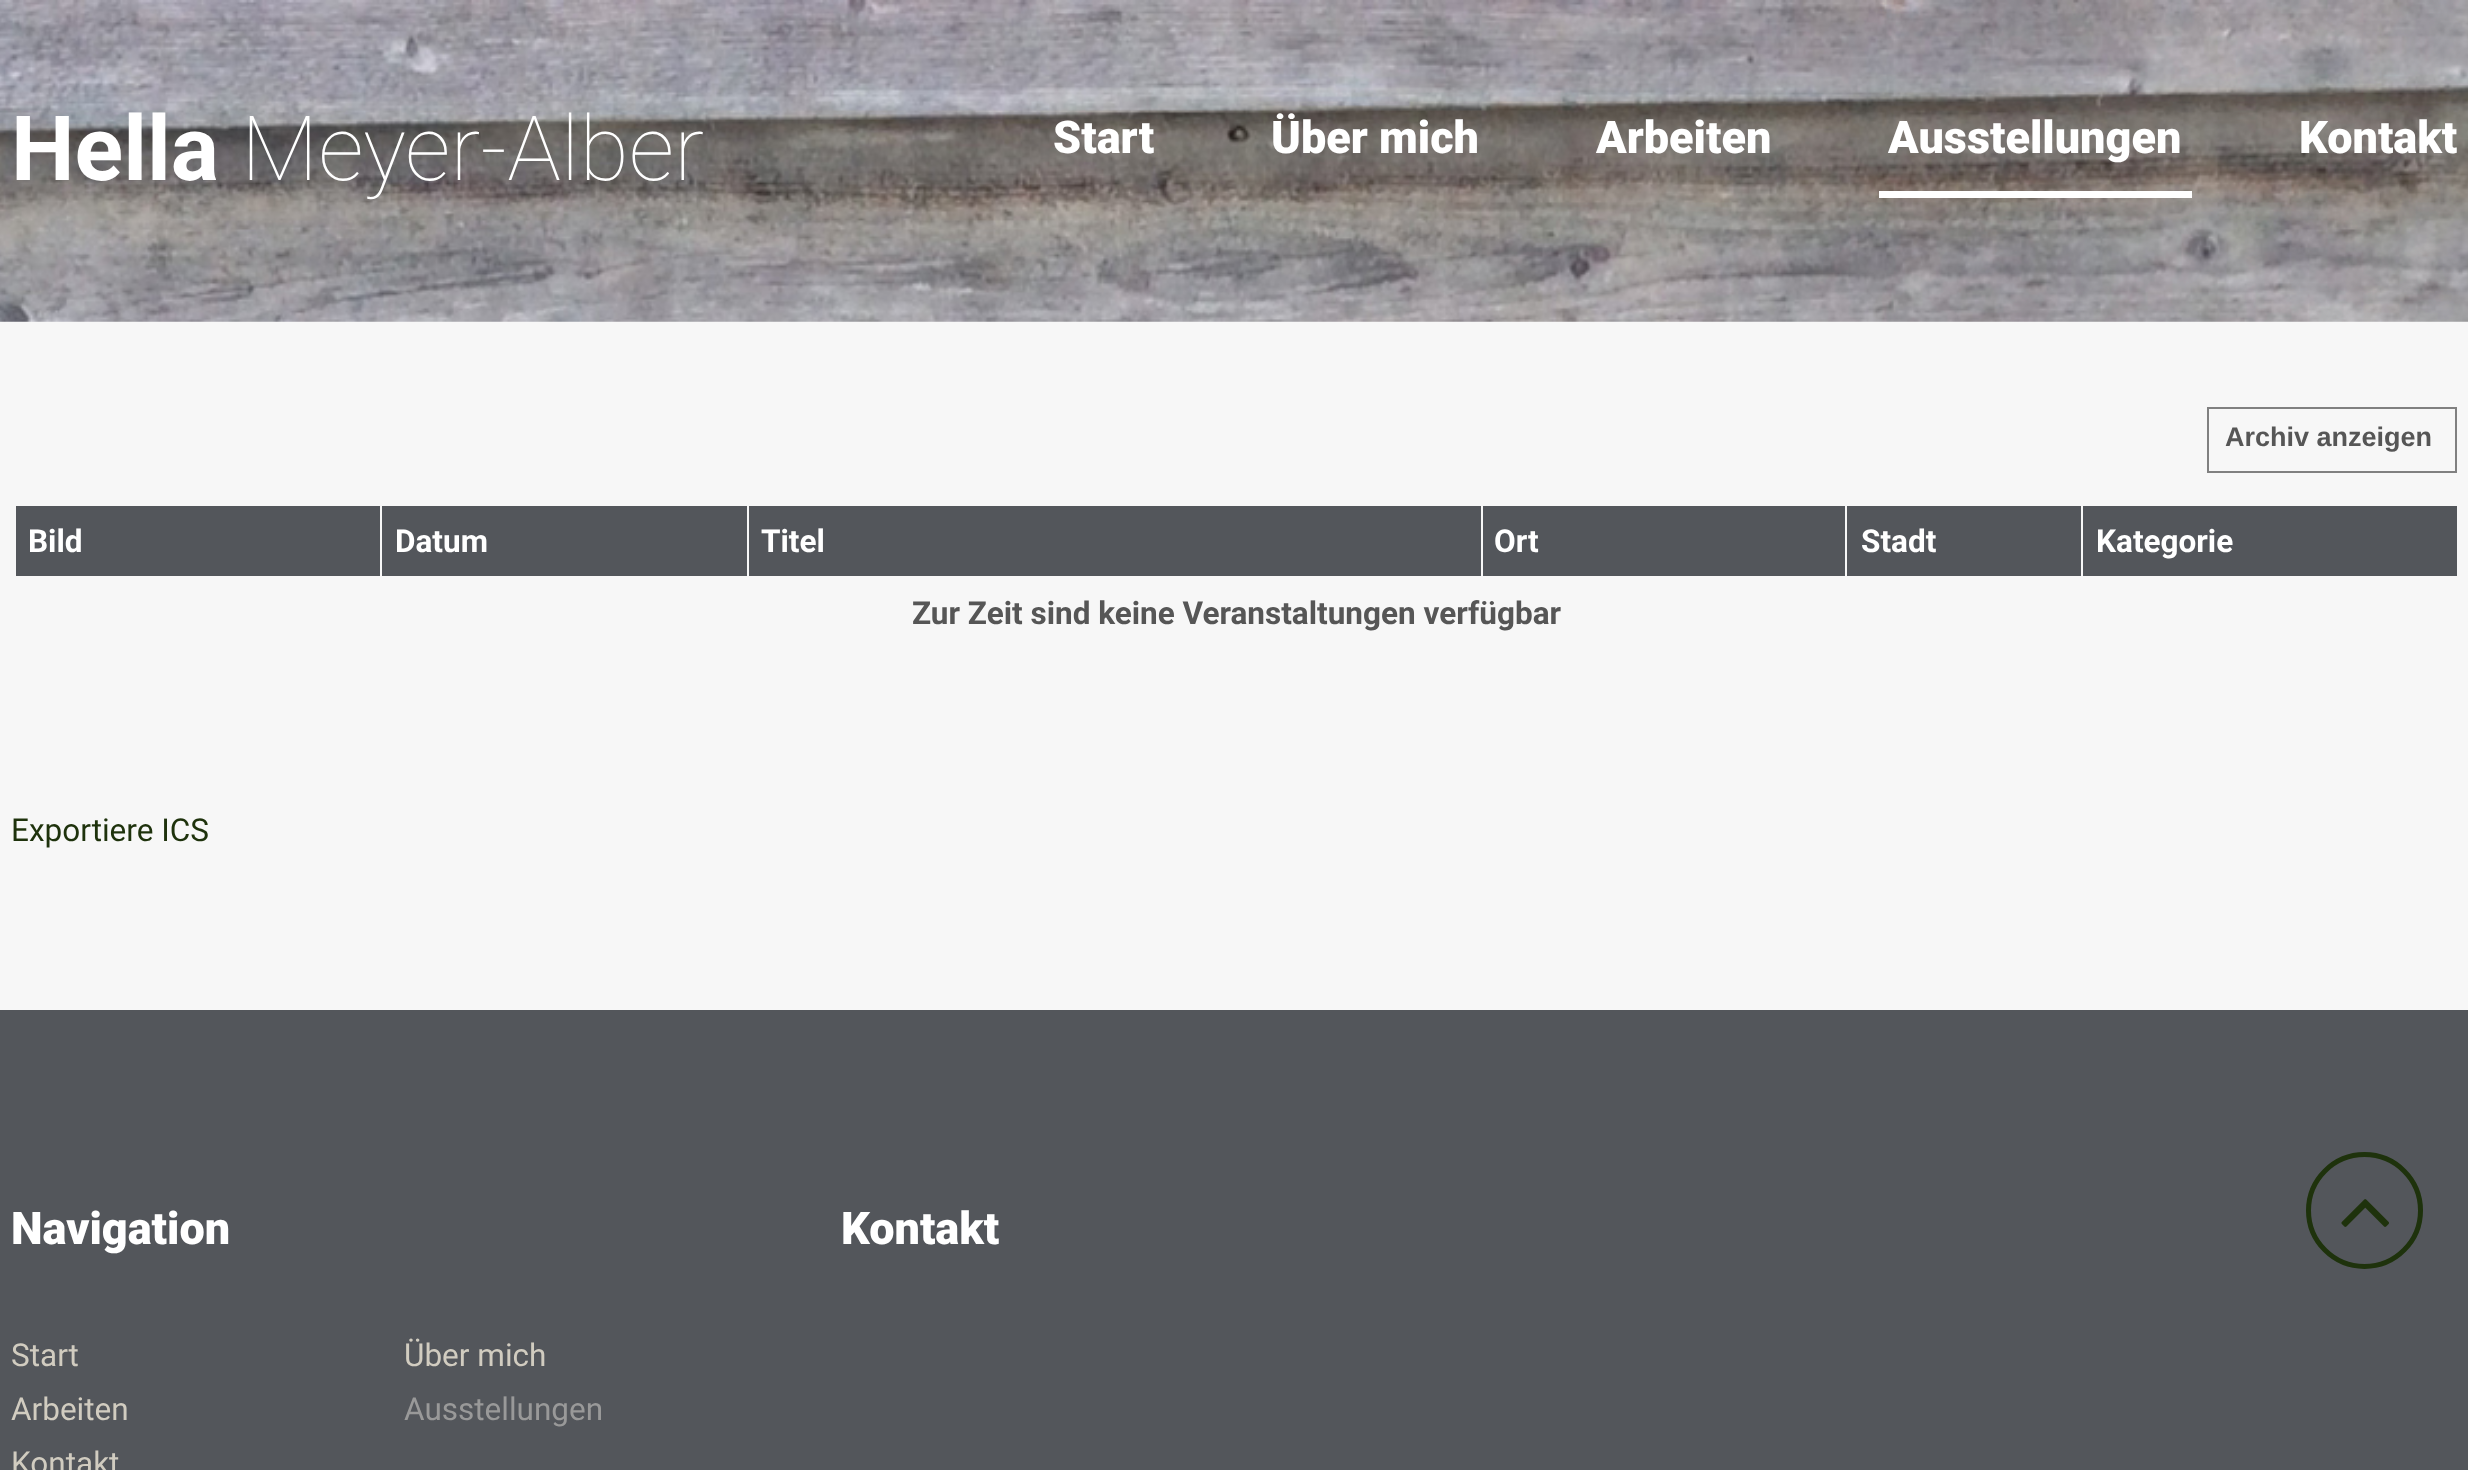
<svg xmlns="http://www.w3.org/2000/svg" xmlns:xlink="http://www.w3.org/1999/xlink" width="2468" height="1470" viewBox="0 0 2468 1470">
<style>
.cls-1{font:bold 90px Roboto;fill:#ffffff}
.cls-2{font:100 90px Roboto;fill:#ffffff}
.cls-3{font:900 45px Roboto;fill:#ffffff}
.cls-4{font:bold 27px Liberation Sans;fill:#565656}
.cls-5{font:bold 31.5px Roboto;fill:#ffffff}
.cls-6{font:bold 31.5px Roboto;fill:#565656}
.cls-7{font:31.5px Roboto;fill:#1e320c}
.cls-8{font:31.5px Roboto;fill:#d1ccc0}
.cls-9{font:31.5px Roboto;fill:#999999}
</style>
<rect width="100%" height="100%" fill="#f7f7f7"/>
<image xlink:href="image0.png" x="0" y="0" width="2468" height="322"/>
<rect fill="#ffffff" x="1879" y="191" width="313" height="7"/>
<rect fill="none" stroke="#808080" stroke-width="2" x="2208" y="408" width="248" height="64"/>
<rect fill="#53565b" x="16" y="506" width="364" height="70"/>
<rect fill="#53565b" x="382" y="506" width="365" height="70"/>
<rect fill="#53565b" x="749" y="506" width="732" height="70"/>
<rect fill="#53565b" x="1483" y="506" width="362" height="70"/>
<rect fill="#53565b" x="1847" y="506" width="234" height="70"/>
<rect fill="#53565b" x="2083" y="506" width="374" height="70"/>
<rect fill="#53565b" x="0" y="1010" width="2468" height="460"/>
<circle fill="none" stroke="#1e320c" stroke-width="5" cx="2364.5" cy="1210.5" r="56"/>
<image xlink:href="image1.png" x="2341" y="1199" width="48" height="28"/>
<text class="cls-1" x="11" y="180">Hella</text>
<text class="cls-2" x="241" y="180">Me</text>
<text class="cls-2" x="363" y="180">y</text>
<text class="cls-2" x="405" y="180">er-Alber</text>
<text class="cls-3" x="1053" y="153">Start</text>
<text class="cls-3" x="1271" y="153">Über mich</text>
<text class="cls-3" x="1596" y="153">Arbeiten</text>
<text class="cls-3" x="1888" y="153">Ausstellungen</text>
<text class="cls-3" x="2299" y="153">Kontakt</text>
<text class="cls-4" x="2225" y="446">Archiv anzeigen</text>
<text class="cls-5" x="28" y="552">Bild</text>
<text class="cls-5" x="395" y="552">Datum</text>
<text class="cls-5" x="761" y="552">Titel</text>
<text class="cls-5" x="1494" y="552">Ort</text>
<text class="cls-5" x="1861" y="552">Stadt</text>
<text class="cls-5" x="2096" y="552">Kategorie</text>
<text class="cls-6" x="912" y="624">Zur Zeit sind keine Veranstaltungen verfügbar</text>
<text class="cls-7" x="11" y="841">Exportiere ICS</text>
<text class="cls-3" x="11" y="1244">Navigation</text>
<text class="cls-8" x="11" y="1366">Start</text>
<text class="cls-8" x="404" y="1366">Über mich</text>
<text class="cls-8" x="11" y="1420">Arbeiten</text>
<text class="cls-9" x="404" y="1420">Ausstellungen</text>
<text class="cls-8" x="11" y="1474">Kontakt</text>
<text class="cls-3" x="841" y="1244">Kontakt</text>
</svg>
